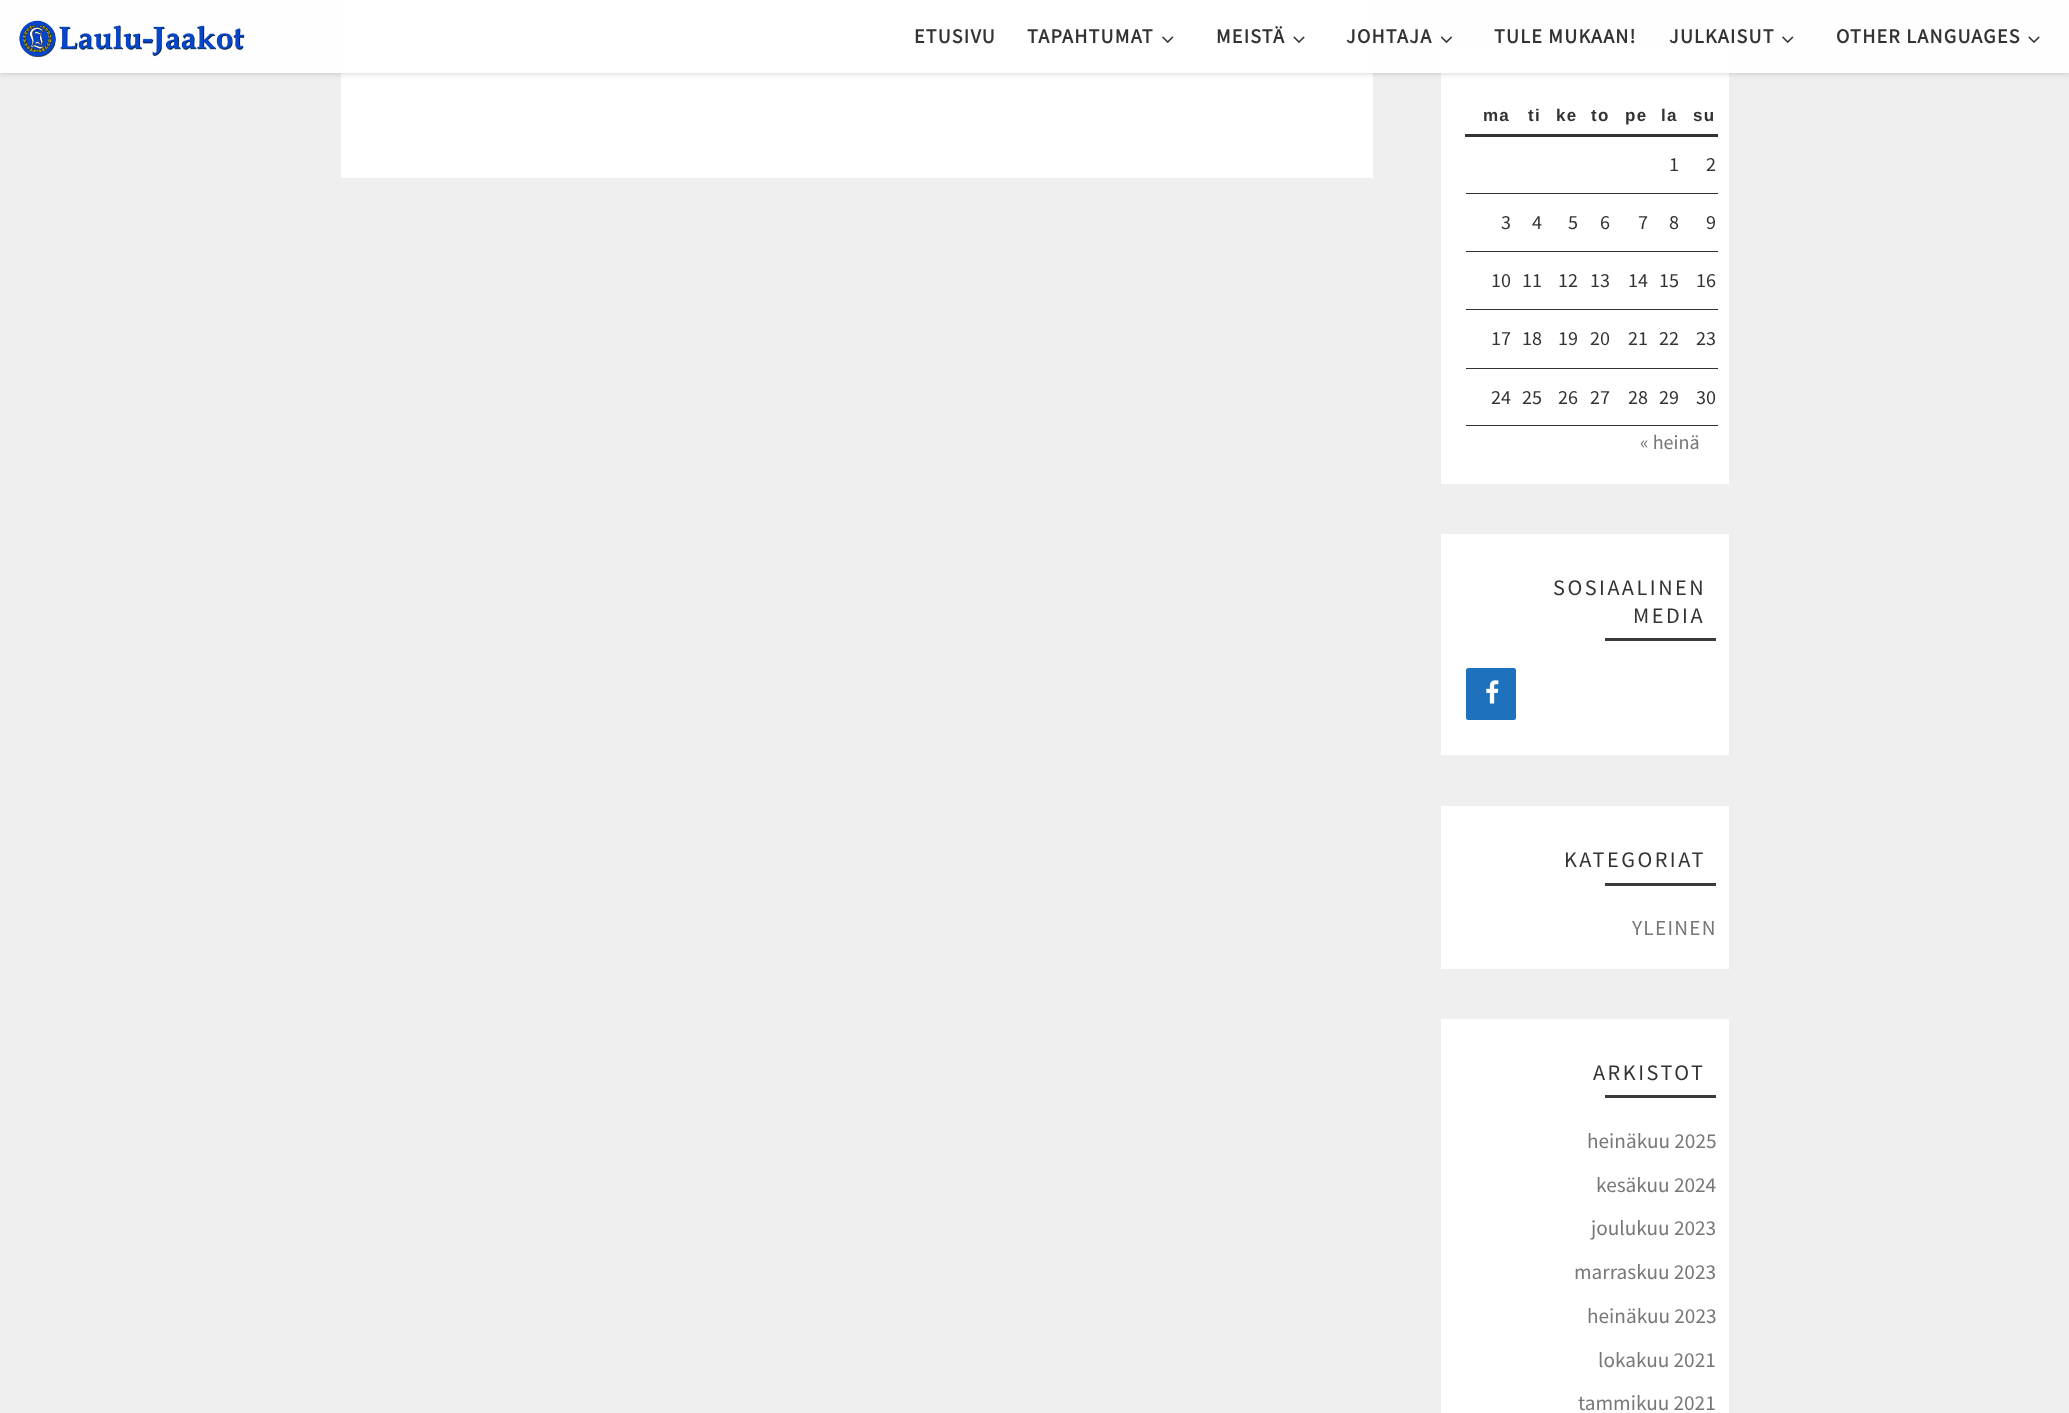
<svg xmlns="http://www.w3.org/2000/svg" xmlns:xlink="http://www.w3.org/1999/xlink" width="2069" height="1413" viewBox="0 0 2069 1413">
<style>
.cls-1{font:bold 20.1px Source Sans Pro;letter-spacing:1.25px;fill:#333333}
.cls-2{font:bold 17px Liberation Sans;letter-spacing:1.25px;fill:#333333}
.cls-3{font:20.1px Source Sans Pro;fill:#333333}
.cls-4{font:20.1px Source Sans Pro;fill:#777777}
.cls-5{font:22.25px Source Sans Pro;letter-spacing:2.5px;fill:#333333}
.cls-6{font:21.25px Source Sans Pro;letter-spacing:1.25px;fill:#777777}
.cls-7{font:21.25px Source Sans Pro;fill:#777777}
</style>
<defs>
<clipPath id="clip1"><path d="M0 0H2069V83H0ZM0 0H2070V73H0Z" clip-rule="evenodd"/></clipPath>
</defs>
<rect width="100%" height="100%" fill="#efefef"/>
<rect fill="#ffffff" x="341" y="0" width="1032" height="178"/>
<rect fill="#ffffff" x="1441" y="45" width="288" height="439"/>
<g clip-path="url(#clip1)">
<rect fill="#000000" fill-opacity="0.2" filter="blur(3px)" x="0" y="0" width="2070" height="73"/>
</g>
<rect fill="#ffffff" fill-opacity="0.9" x="0" y="0" width="2069" height="73"/>
<image xlink:href="image0.png" x="19" y="20" width="226" height="38"/>
<image xlink:href="image1.png" x="1162" y="36" width="12" height="7"/>
<image xlink:href="image2.png" x="1293" y="36" width="12" height="7"/>
<image xlink:href="image3.png" x="1440" y="36" width="12" height="7"/>
<image xlink:href="image4.png" x="1782" y="36" width="12" height="7"/>
<image xlink:href="image5.png" x="2028" y="36" width="12" height="7"/>
<rect fill="#333333" x="1465" y="134" width="253" height="3"/>
<rect fill="#333333" x="1466" y="193" width="252" height="1"/>
<rect fill="#333333" x="1466" y="251" width="252" height="1"/>
<rect fill="#333333" x="1466" y="309" width="252" height="1"/>
<rect fill="#333333" x="1466" y="368" width="252" height="1"/>
<rect fill="#333333" x="1466" y="425" width="252" height="1"/>
<rect fill="#ffffff" x="1441" y="534" width="288" height="221"/>
<rect fill="#3b3b3b" x="1605" y="638" width="111" height="3"/>
<rect fill="#1e72bd" x="1466" y="668" width="50" height="52" rx="2.5"/>
<image xlink:href="image6.png" x="1486" y="680" width="13" height="24"/>
<rect fill="#ffffff" x="1441" y="806" width="288" height="163"/>
<rect fill="#3b3b3b" x="1605" y="883" width="111" height="3"/>
<rect fill="#ffffff" x="1441" y="1019" width="288" height="394"/>
<rect fill="#3b3b3b" x="1605" y="1095" width="111" height="3"/>
<text class="cls-1" x="914" y="43">ETUSIVU</text>
<text class="cls-1" x="1027" y="43">TAPAHTUMAT</text>
<text class="cls-1" x="1216" y="43">MEISTÄ</text>
<text class="cls-1" x="1346" y="43">JOHTAJA</text>
<text class="cls-1" x="1494" y="43">TULE MUKAAN!</text>
<text class="cls-1" x="1669" y="43">JULKAISUT</text>
<text class="cls-1" x="1836" y="43">OTHER LANGUAGES</text>
<text class="cls-2" x="1483" y="121">ma</text>
<text class="cls-2" x="1528" y="121">ti</text>
<text class="cls-2" x="1556" y="121">ke</text>
<text class="cls-2" x="1591" y="121">to</text>
<text class="cls-2" x="1625" y="121">pe</text>
<text class="cls-2" x="1661" y="121">la</text>
<text class="cls-2" x="1693" y="121">su</text>
<text class="cls-3" x="1669" y="171">1</text>
<text class="cls-3" x="1706" y="171">2</text>
<text class="cls-3" x="1501" y="229">3</text>
<text class="cls-3" x="1532" y="229">4</text>
<text class="cls-3" x="1568" y="229">5</text>
<text class="cls-3" x="1600" y="229">6</text>
<text class="cls-3" x="1638" y="229">7</text>
<text class="cls-3" x="1669" y="229">8</text>
<text class="cls-3" x="1706" y="229">9</text>
<text class="cls-3" x="1491" y="287">10</text>
<text class="cls-3" x="1522" y="287">11</text>
<text class="cls-3" x="1558" y="287">12</text>
<text class="cls-3" x="1590" y="287">13</text>
<text class="cls-3" x="1628" y="287">14</text>
<text class="cls-3" x="1659" y="287">15</text>
<text class="cls-3" x="1696" y="287">16</text>
<text class="cls-3" x="1491" y="345">17</text>
<text class="cls-3" x="1522" y="345">18</text>
<text class="cls-3" x="1558" y="345">19</text>
<text class="cls-3" x="1590" y="345">20</text>
<text class="cls-3" x="1628" y="345">21</text>
<text class="cls-3" x="1659" y="345">22</text>
<text class="cls-3" x="1696" y="345">23</text>
<text class="cls-3" x="1491" y="404">24</text>
<text class="cls-3" x="1522" y="404">25</text>
<text class="cls-3" x="1558" y="404">26</text>
<text class="cls-3" x="1590" y="404">27</text>
<text class="cls-3" x="1628" y="404">28</text>
<text class="cls-3" x="1659" y="404">29</text>
<text class="cls-3" x="1696" y="404">30</text>
<text class="cls-4" x="1640" y="449">« heinä</text>
<text class="cls-5" x="1553" y="595">SOSIAALINEN</text>
<text class="cls-5" x="1633" y="623">MEDIA</text>
<text class="cls-5" x="1564" y="867">KATEGORIAT</text>
<text class="cls-6" x="1632" y="935">YLEINEN</text>
<text class="cls-5" x="1593" y="1080">ARKISTOT</text>
<text class="cls-7" x="1587" y="1148">heinäkuu 2025</text>
<text class="cls-7" x="1596" y="1192">kesäkuu 2024</text>
<text class="cls-7" x="1591" y="1235">joulukuu 2023</text>
<text class="cls-7" x="1574" y="1279">marraskuu 2023</text>
<text class="cls-7" x="1587" y="1323">heinäkuu 2023</text>
<text class="cls-7" x="1598" y="1367">lokakuu 2021</text>
<text class="cls-7" x="1578" y="1410">tammikuu 2021</text>
</svg>
